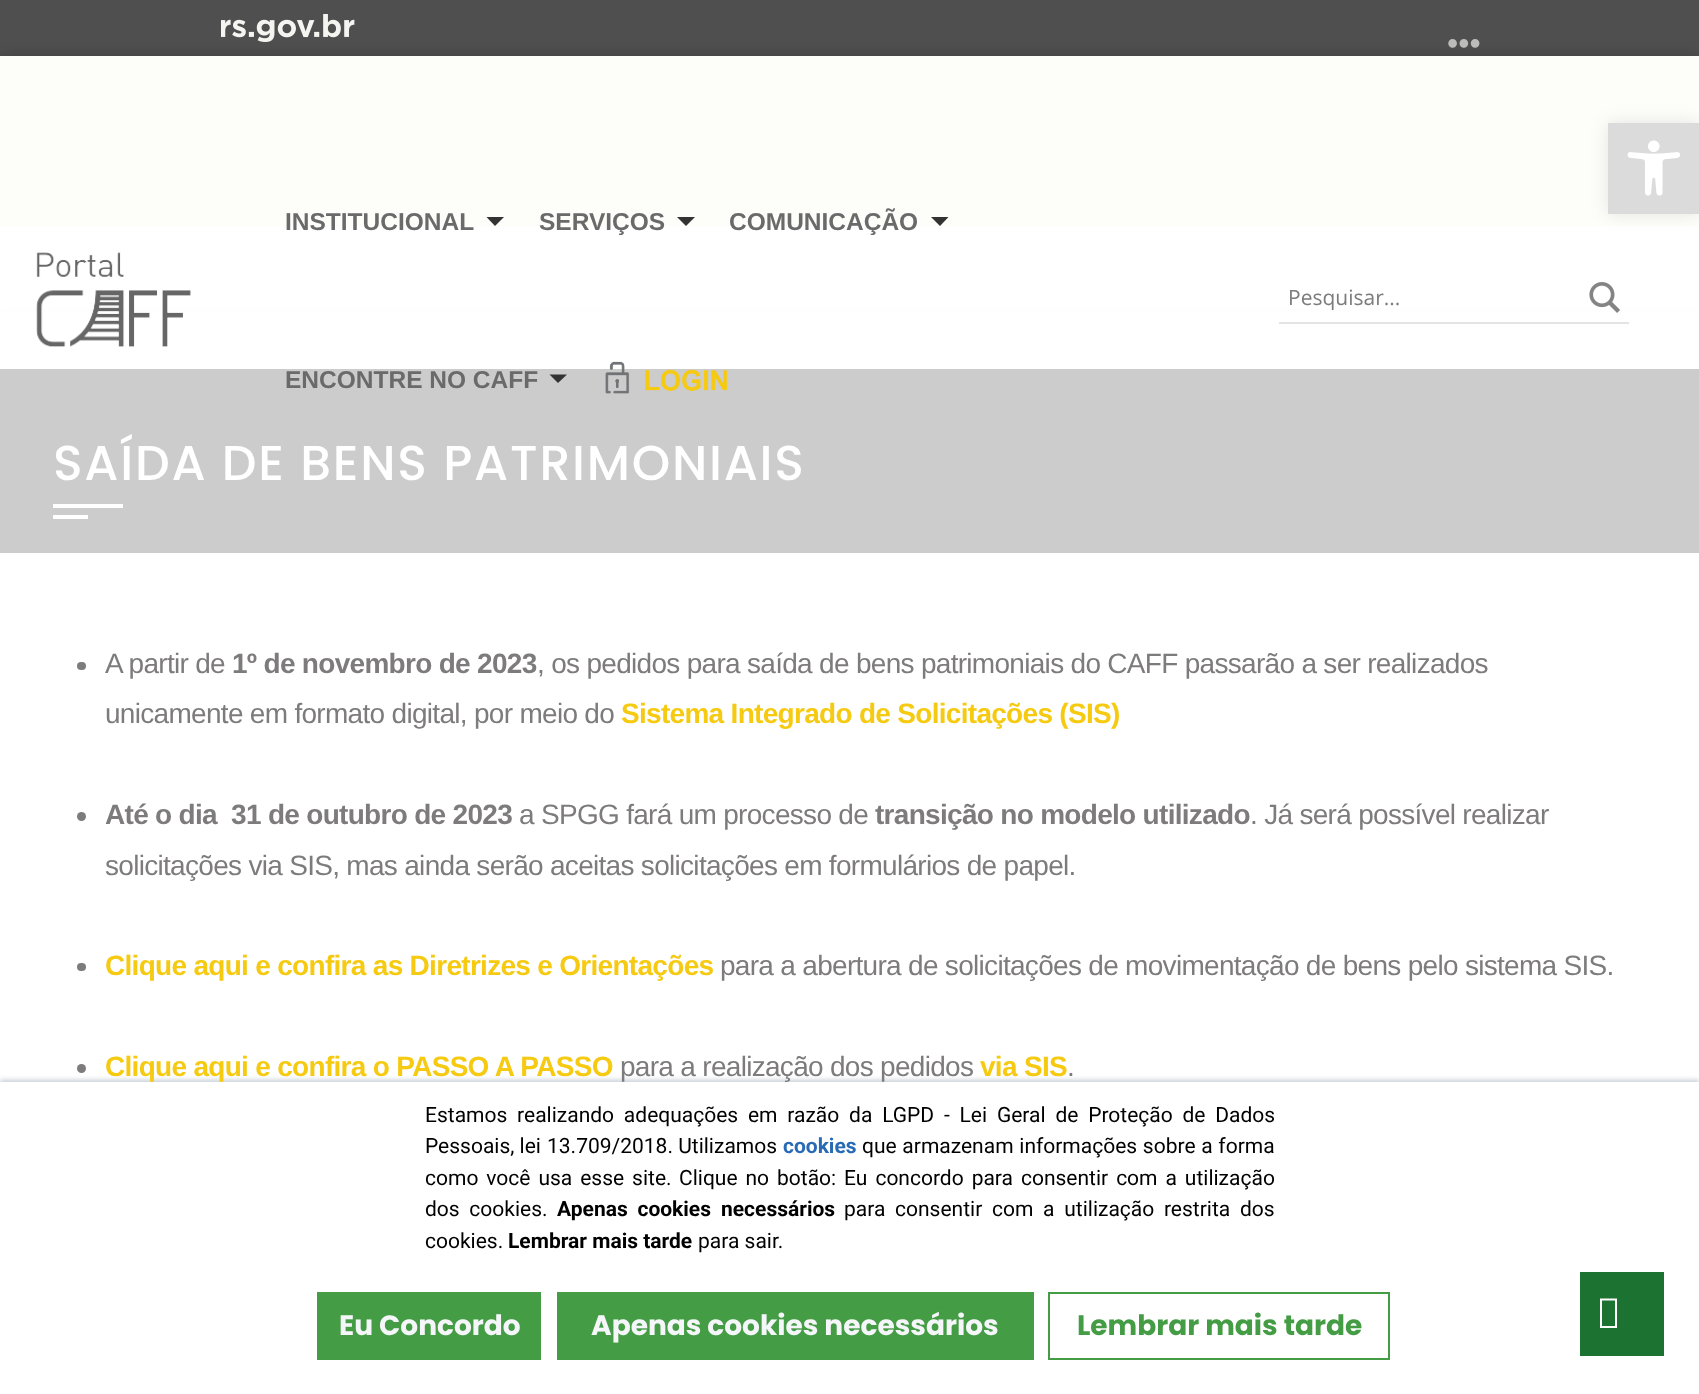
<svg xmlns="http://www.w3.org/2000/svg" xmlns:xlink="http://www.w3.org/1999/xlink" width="1699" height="1394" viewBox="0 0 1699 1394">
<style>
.cls-1{font:32px Liberation Sans;fill:#bcbcbb}
.cls-2{font:bold 24.5px Liberation Sans;fill:#6a6a6b}
.cls-3{font:21px Open Sans;fill:#7d7b7b}
.cls-4{font:500 49px Poppins;letter-spacing:1.75px;fill:#ffffff}
.cls-5{font:28px Liberation Sans;letter-spacing:-0.7px;fill:#7d7b7b}
.cls-6{font:bold 28px Liberation Sans;letter-spacing:-0.7px;fill:#7d7b7b}
.cls-7{font:bold 28px Liberation Sans;letter-spacing:-0.7px;fill:#f5ca11}
.cls-8{font:21px Roboto;fill:#000000}
.cls-9{font:bold 21px Roboto;fill:#296ab5}
.cls-10{font:bold 21px Roboto;fill:#000000}
.cls-11{font:bold 28px Poppins;fill:#f5f6fa}
.cls-12{font:bold 28px Poppins;fill:#449d44}
</style>
<rect width="100%" height="100%" fill="#ffffff"/>
<rect fill="#4f4f4f" x="0" y="0" width="1699" height="56"/>
<image xlink:href="image0.png" x="221" y="14" width="134" height="28"/>
<rect fill="#000000" fill-opacity="0.2" filter="blur(7px)" x="0" y="56" width="1699" height="242"/>
<rect fill="#fdfdfa" x="0" y="56" width="1699" height="170"/>
<rect fill="#ffffff" x="0" y="226" width="1699" height="83"/>
<rect fill="#000000" fill-opacity="0.1" filter="blur(9px)" x="1608" y="123" width="91" height="91"/>
<rect fill="#dbdbdb" x="1608" y="123" width="91" height="91"/>
<image xlink:href="image1.png" x="1627" y="140" width="53" height="56"/>
<image xlink:href="image2.png" x="36" y="252" width="155" height="95"/>
<path fill="#333333" d="M486.5 217H504L495 226Z"/>
<path fill="#333333" d="M677 217H695L686 226Z"/>
<path fill="#333333" d="M931 217H948.5L940 226Z"/>
<rect fill="#cccccc" x="0" y="369" width="1699" height="184"/>
<path fill="#333333" d="M549.5 374.5H567L558 383Z"/>
<image xlink:href="image3.png" x="605" y="361" width="123" height="33"/>
<path fill="#e4e4e4" d="M1279 275V324H1629V322H1279Z"/>
<image xlink:href="image4.png" x="1589" y="282" width="31" height="31"/>
<rect fill="#ffffff" x="53" y="504" width="70" height="4"/>
<rect fill="#ffffff" x="53" y="515" width="35" height="4"/>
<rect fill="#7d7b7b" x="77" y="662" width="9" height="8" rx="4"/>
<circle fill="#7d7b7b" cx="81.5" cy="816.5" r="4.5"/>
<rect fill="#7d7b7b" x="77" y="963" width="9" height="8" rx="4"/>
<circle fill="#7d7b7b" cx="81.5" cy="1068.5" r="4.5"/>
<rect fill="#c5cdd4" filter="blur(2.5px)" x="0" y="1080" width="1699" height="313"/>
<rect fill="#ffffff" x="0" y="1082" width="1699" height="312"/>
<rect fill="#449d44" x="317" y="1292" width="224" height="68"/>
<rect fill="#449d44" x="557" y="1292" width="477" height="68"/>
<rect fill="none" stroke="#449d44" stroke-width="2" x="1049" y="1293" width="340" height="66"/>
<rect fill="#1c7230" x="1580" y="1272" width="84" height="84"/>
<path fill="#ffffff" d="M1600 1328V1298.5H1617V1328ZM1602 1326H1615V1300.5H1602Z"/>
<text class="cls-1" x="1447" y="54">•••</text>
<text class="cls-2" x="285" y="230">INSTITUCIONAL</text>
<text class="cls-2" x="539" y="230">SERVIÇOS</text>
<text class="cls-2" x="729" y="230">COMUNICAÇÃO</text>
<text class="cls-2" x="285" y="388">ENCONTRE NO CAFF</text>
<text class="cls-3" x="1288" y="305">Pesquisar...</text>
<text class="cls-4" x="53" y="480">SAÍDA DE BENS PATRIMONIAIS</text>
<text class="cls-5" x="105" y="673">A partir de</text>
<text class="cls-6" x="232" y="673">1º de novembro de 2023</text>
<text class="cls-5" x="537" y="673">, os pedidos para saída de bens patrimoniais do CAFF passarão a ser realizados</text>
<text class="cls-5" x="105" y="723">unicamente em formato digital, por meio do</text>
<text class="cls-7" x="621" y="723">Sistema Integrado de Solicitações (SIS)</text>
<text class="cls-6" xml:space="preserve" x="105" y="824">Até o dia  31 de outubro de 2023</text>
<text class="cls-5" x="519" y="824">a SPGG fará um processo de</text>
<text class="cls-6" x="875" y="824">transição no modelo utilizado</text>
<text class="cls-5" x="1250" y="824">. Já será possível realizar</text>
<text class="cls-5" x="105" y="875">solicitações via SIS, mas ainda serão aceitas solicitações em formulários de papel.</text>
<text class="cls-7" x="105" y="975">Clique aqui e confira as Diretrizes e Orientações</text>
<text class="cls-5" x="720" y="975">para a abertura de solicitações de movimentação de bens pelo sistema SIS.</text>
<text class="cls-7" x="105" y="1076">Clique aqui e confira o PASSO A PASSO</text>
<text class="cls-5" x="620" y="1076">para a realização dos pedidos</text>
<text class="cls-7" x="980" y="1076">via SIS</text>
<text class="cls-5" x="1067" y="1076">.</text>
<text class="cls-8"><tspan x="425" y="1122" word-spacing="4.6">Estamos realizando adequações em razão da LGPD - Lei Geral de Proteção de Dados</tspan><tspan x="425" y="1153">Pessoais, lei</tspan></text>
<text class="cls-8" x="547" y="1153">13.709/2018. Utilizamos</text>
<text class="cls-9" x="783" y="1153">cookies</text>
<text class="cls-8" x="862" y="1153" word-spacing="0.5">que armazenam informações sobre a forma</text>
<text class="cls-8" x="425" y="1185" word-spacing="2.75">como você usa esse site.</text>
<text class="cls-8" x="679" y="1185" word-spacing="2.75">Clique no botão: Eu concordo para consentir com a utilização</text>
<text class="cls-8" x="425" y="1216" word-spacing="4.5">dos cookies.</text>
<text class="cls-10" x="557" y="1216" word-spacing="4.5">Apenas cookies</text>
<text class="cls-10" x="721" y="1216">necessários</text>
<text class="cls-8" x="844" y="1216" word-spacing="4.5">para consentir com a utilização restrita dos</text>
<text class="cls-8" x="425" y="1248">cookies.</text>
<text class="cls-10" x="508" y="1248">Lembrar mais tarde</text>
<text class="cls-8" x="698" y="1248">para sair.</text>
<text class="cls-11" x="339" y="1335">Eu Concordo</text>
<text class="cls-11" x="591" y="1335">Apenas cookies necessários</text>
<text class="cls-12" x="1077" y="1335">Lembrar mais tarde</text>
</svg>
